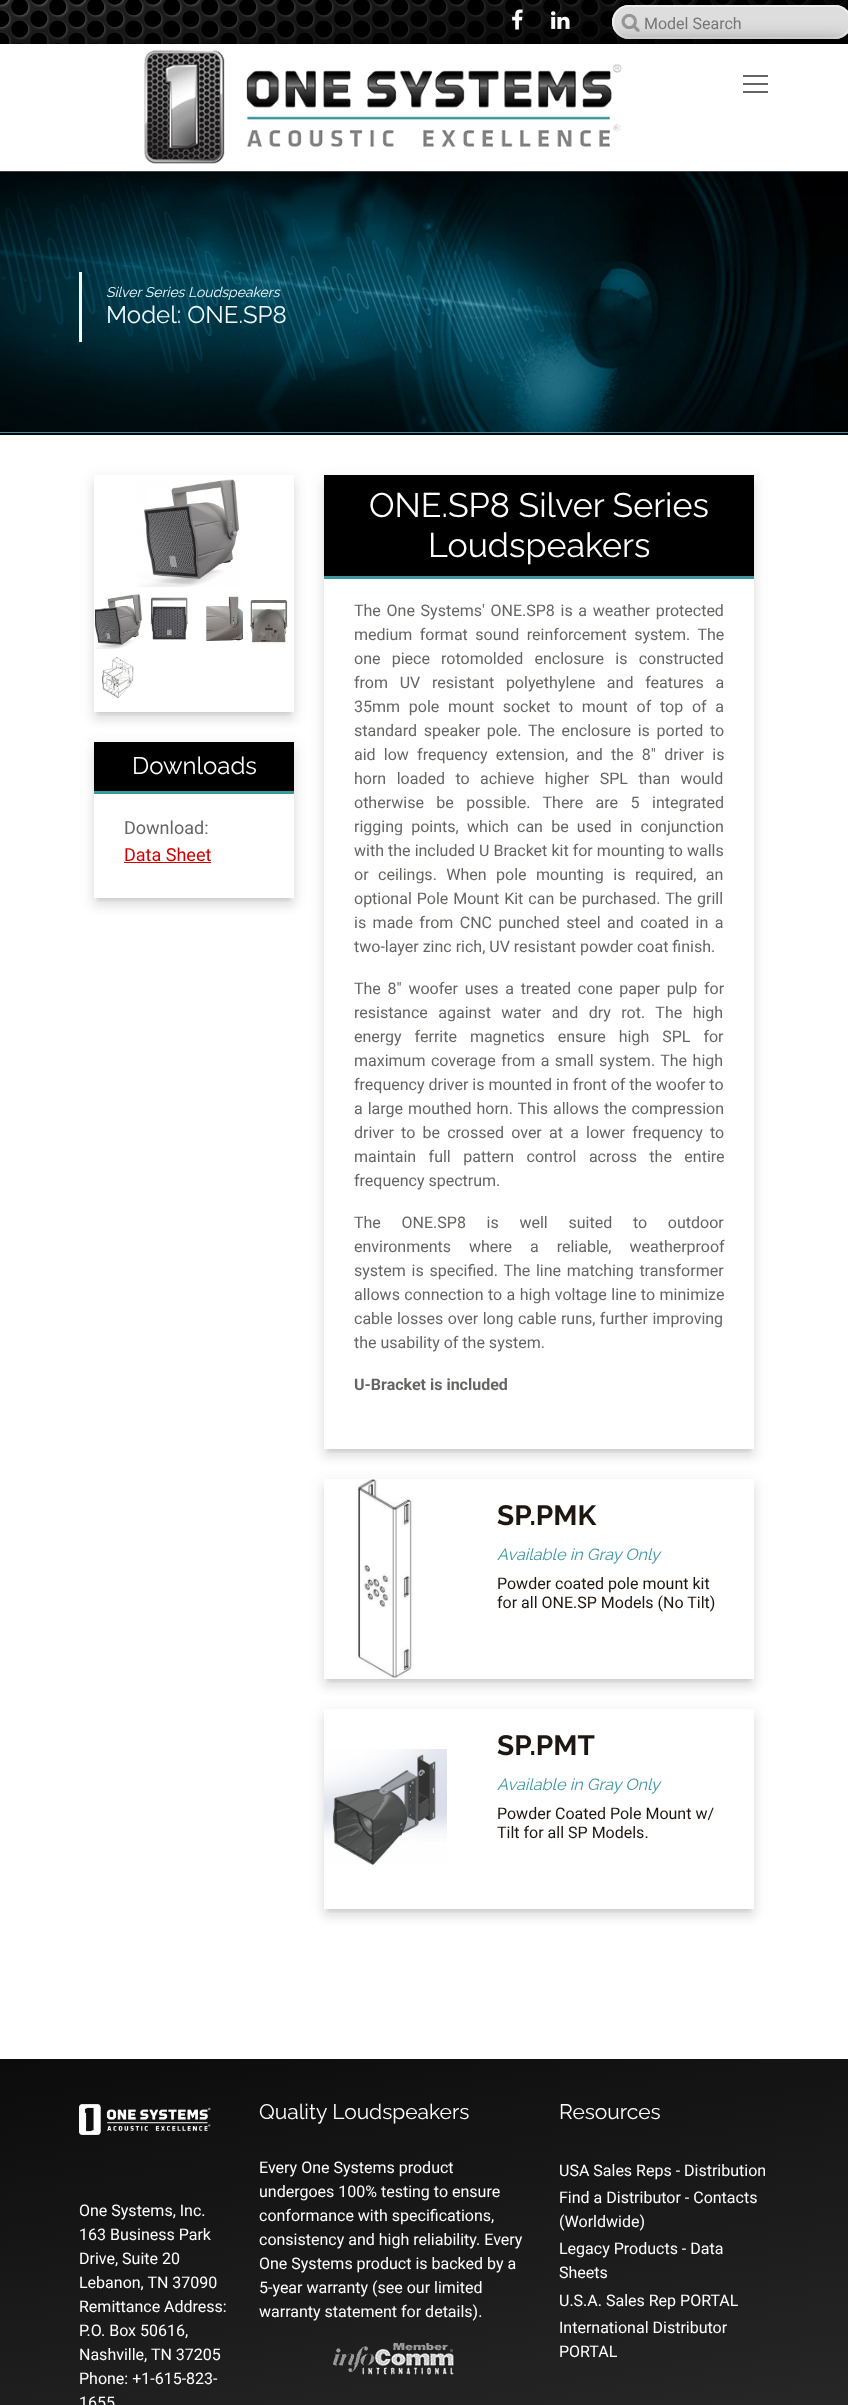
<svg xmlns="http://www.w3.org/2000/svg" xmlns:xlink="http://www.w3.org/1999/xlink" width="848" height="2405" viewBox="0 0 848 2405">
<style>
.cls-1{font:16px Roboto;fill:#757575}
.cls-2{font:italic 14px Raleway;fill:#f1f9ff}
.cls-3{font:24px Raleway;fill:#f1f9ff}
.cls-4{font:24px Raleway;fill:#ffffff}
.cls-5{font:18px Roboto;fill:#656564}
.cls-6{font:18px Roboto;fill:#d40000}
.cls-7{font:34px Raleway;fill:#ffffff}
.cls-8{font:16px Roboto;fill:#656564}
.cls-9{font:bold 16px Roboto;fill:#656564}
.cls-10{font:bold 28px Raleway;fill:#1e1610}
.cls-11{font:italic 16.25px Raleway;fill:#3c96a1}
.cls-12{font:16px Roboto;fill:#1e1610}
.cls-13{font:16px Roboto;fill:#ffffff}
.cls-14{font:21px Raleway;fill:#ffffff}
</style>
<defs>
<clipPath id="clip1"><path d="M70 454H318V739H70ZM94 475H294V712H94Z" clip-rule="evenodd"/></clipPath>
<clipPath id="clip2"><path d="M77 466H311V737H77ZM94 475H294V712H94Z" clip-rule="evenodd"/></clipPath>
<clipPath id="clip3"><rect x="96" y="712" width="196" height="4"/></clipPath>
<clipPath id="clip4"><path d="M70 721H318V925H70ZM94 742H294V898H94Z" clip-rule="evenodd"/></clipPath>
<clipPath id="clip5"><path d="M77 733H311V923H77ZM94 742H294V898H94Z" clip-rule="evenodd"/></clipPath>
<clipPath id="clip6"><rect x="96" y="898" width="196" height="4"/></clipPath>
<clipPath id="clip7"><path d="M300 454H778V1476H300ZM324 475H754V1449H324Z" clip-rule="evenodd"/></clipPath>
<clipPath id="clip8"><path d="M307 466H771V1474H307ZM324 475H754V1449H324Z" clip-rule="evenodd"/></clipPath>
<clipPath id="clip9"><rect x="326" y="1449" width="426" height="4"/></clipPath>
<clipPath id="clip10"><path d="M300 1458H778V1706H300ZM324 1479H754V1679H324Z" clip-rule="evenodd"/></clipPath>
<clipPath id="clip11"><path d="M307 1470H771V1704H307ZM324 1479H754V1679H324Z" clip-rule="evenodd"/></clipPath>
<clipPath id="clip12"><rect x="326" y="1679" width="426" height="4"/></clipPath>
<clipPath id="clip13"><path d="M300 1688H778V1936H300ZM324 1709H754V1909H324Z" clip-rule="evenodd"/></clipPath>
<clipPath id="clip14"><path d="M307 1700H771V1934H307ZM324 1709H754V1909H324Z" clip-rule="evenodd"/></clipPath>
<clipPath id="clip15"><rect x="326" y="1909" width="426" height="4"/></clipPath>
<linearGradient id="g1" gradientUnits="userSpaceOnUse" x1="369" y1="1953" x2="479" y2="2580"><stop offset="0" stop-color="#090909"/><stop offset="1" stop-color="#2d2d2d"/></linearGradient>
</defs>
<rect width="100%" height="100%" fill="#ffffff"/>
<image xlink:href="image1.png" x="0" y="0" width="848" height="44"/>
<image xlink:href="image2.png" x="512" y="9" width="11" height="21"/>
<image xlink:href="image3.png" x="551" y="11" width="19" height="18"/>
<rect fill="#dddddd" x="612" y="5" width="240" height="34" rx="17"/>
<image xlink:href="image4.png" x="621" y="14" width="19" height="18"/>
<rect fill="none" stroke="#ededed" stroke-width="2" x="613" y="6" width="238" height="32" rx="16"/>
<image xlink:href="image5.png" x="0" y="172" width="848" height="260"/>
<rect fill="#000000" fill-opacity="0.5" filter="blur(10px)" x="0" y="44" width="848" height="128"/>
<rect fill="#ffffff" x="0" y="44" width="848" height="127"/>
<rect fill="#404041" x="0" y="171" width="848" height="1"/>
<image xlink:href="image0.png" x="144" y="50" width="478" height="114"/>
<rect fill="#666564" x="743" y="83" width="25" height="2"/>
<rect fill="#666564" x="743" y="75" width="25" height="2"/>
<rect fill="#666564" x="743" y="91" width="25" height="2"/>
<rect fill="#3991a3" x="0" y="432" width="848" height="1"/>
<rect fill="#f1f9ff" x="79" y="272" width="3" height="70"/>
<rect fill="#000000" x="0" y="433" width="848" height="2"/>
<g clip-path="url(#clip1)">
<rect fill="#000000" fill-opacity="0.06" filter="blur(7px)" x="92" y="476" width="204" height="241"/>
</g>
<g clip-path="url(#clip2)">
<rect fill="#000000" fill-opacity="0.07" filter="blur(5px)" x="93" y="482" width="202" height="239"/>
</g>
<g clip-path="url(#clip3)">
<rect fill="#000000" fill-opacity="0.1" filter="blur(2.5px)" x="97" y="483" width="194" height="231"/>
</g>
<image xlink:href="image6.png" x="136" y="479" width="104" height="108"/>
<image xlink:href="image7.png" x="95" y="593" width="48" height="56"/>
<image xlink:href="image8.png" x="150" y="597" width="39" height="44"/>
<image xlink:href="image9.png" x="205" y="596" width="38" height="45"/>
<image xlink:href="image10.png" x="250" y="600" width="38" height="45"/>
<image xlink:href="image11.png" x="102" y="657" width="32" height="42"/>
<g clip-path="url(#clip4)">
<rect fill="#000000" fill-opacity="0.06" filter="blur(7px)" x="92" y="743" width="204" height="160"/>
</g>
<g clip-path="url(#clip5)">
<rect fill="#000000" fill-opacity="0.07" filter="blur(5px)" x="93" y="749" width="202" height="158"/>
</g>
<g clip-path="url(#clip6)">
<rect fill="#000000" fill-opacity="0.1" filter="blur(2.5px)" x="97" y="750" width="194" height="150"/>
</g>
<rect fill="#000000" x="94" y="742" width="200" height="49"/>
<rect fill="#3c97a1" x="94" y="791" width="200" height="3"/>
<rect fill="#d40000" x="124" y="862" width="87" height="1"/>
<g clip-path="url(#clip7)">
<rect fill="#000000" fill-opacity="0.06" filter="blur(7px)" x="322" y="476" width="434" height="978"/>
</g>
<g clip-path="url(#clip8)">
<rect fill="#000000" fill-opacity="0.07" filter="blur(5px)" x="323" y="482" width="432" height="976"/>
</g>
<g clip-path="url(#clip9)">
<rect fill="#000000" fill-opacity="0.1" filter="blur(2.5px)" x="327" y="483" width="424" height="968"/>
</g>
<rect fill="#000000" x="324" y="475" width="430" height="101"/>
<rect fill="#3c97a1" x="324" y="576" width="430" height="3"/>
<g clip-path="url(#clip10)">
<rect fill="#000000" fill-opacity="0.06" filter="blur(7px)" x="322" y="1480" width="434" height="204"/>
</g>
<g clip-path="url(#clip11)">
<rect fill="#000000" fill-opacity="0.07" filter="blur(5px)" x="323" y="1486" width="432" height="202"/>
</g>
<g clip-path="url(#clip12)">
<rect fill="#000000" fill-opacity="0.1" filter="blur(2.5px)" x="327" y="1487" width="424" height="194"/>
</g>
<image xlink:href="image12.png" x="355" y="1479" width="59" height="200"/>
<g clip-path="url(#clip13)">
<rect fill="#000000" fill-opacity="0.06" filter="blur(7px)" x="322" y="1710" width="434" height="204"/>
</g>
<g clip-path="url(#clip14)">
<rect fill="#000000" fill-opacity="0.07" filter="blur(5px)" x="323" y="1716" width="432" height="202"/>
</g>
<g clip-path="url(#clip15)">
<rect fill="#000000" fill-opacity="0.1" filter="blur(2.5px)" x="327" y="1717" width="424" height="194"/>
</g>
<image xlink:href="image13.png" x="324" y="1749" width="123" height="116"/>
<rect fill="url(#g1)" x="0" y="2059" width="848" height="346"/>
<image xlink:href="image14.png" x="79" y="2104" width="132" height="31"/>
<image xlink:href="image15.png" x="333" y="2342" width="121" height="33"/>
<text class="cls-1" x="644" y="29">Model Search</text>
<text class="cls-2" x="106" y="297">Silver Series Loudspeakers</text>
<text class="cls-3" x="106" y="323">Model: ONE.SP8</text>
<text class="cls-4" x="132" y="774">Downloads</text>
<text class="cls-5" x="124" y="834">Download:</text>
<text class="cls-6" x="124" y="861">Data Sheet</text>
<text class="cls-7" x="369" y="517">ONE.SP8 Silver Series</text>
<text class="cls-7" x="428" y="557">Loudspeakers</text>
<text class="cls-8"><tspan x="354" y="616" word-spacing="1.75">The One Systems' ONE.SP8 is a weather protected</tspan><tspan x="354" y="640" word-spacing="3.5">medium format sound reinforcement system. The</tspan><tspan x="354" y="664" word-spacing="7.25">one piece rotomolded enclosure is constructed</tspan><tspan x="354" y="688" word-spacing="7.75">from UV resistant polyethylene and features a</tspan><tspan x="354" y="712" word-spacing="4.75">35mm pole mount socket to mount of top of a</tspan><tspan x="354" y="736" word-spacing="2.75">standard speaker pole. The enclosure is ported to</tspan><tspan x="354" y="760" word-spacing="4.25">aid low frequency extension, and the 8" driver is</tspan><tspan x="354" y="784" word-spacing="6.5">horn loaded to achieve higher SPL than would</tspan><tspan x="354" y="808" word-spacing="8.5">otherwise be possible. There are 5 integrated</tspan><tspan x="354" y="832" word-spacing="4.25">rigging points, which can be used in conjunction</tspan><tspan x="354" y="856" word-spacing="0.1">with the included U Bracket kit for mounting to walls</tspan><tspan x="354" y="880" word-spacing="5.5">or ceilings. When pole mounting is required, an</tspan><tspan x="354" y="904" word-spacing="1">optional Pole Mount Kit can be purchased. The grill</tspan><tspan x="354" y="928" word-spacing="2.5">is made from CNC punched steel and coated in a</tspan><tspan x="354" y="952">two-layer zinc rich, UV resistant powder coat finish.</tspan></text>
<text class="cls-8"><tspan x="354" y="994" word-spacing="2.75">The 8" woofer uses a treated cone paper pulp for</tspan><tspan x="354" y="1018" word-spacing="6.5">resistance against water and dry rot. The high</tspan><tspan x="354" y="1042" word-spacing="9">energy ferrite magnetics ensure high SPL for</tspan><tspan x="354" y="1066" word-spacing="1.5">maximum coverage from a small system. The high</tspan><tspan x="354" y="1090">frequency driver is mounted in front of the woofer to</tspan><tspan x="354" y="1114" word-spacing="1">a large mouthed horn. This allows the compression</tspan><tspan x="354" y="1138" word-spacing="3.25">driver to be crossed over at a lower frequency to</tspan><tspan x="354" y="1162" word-spacing="8.5">maintain full pattern control across the entire</tspan><tspan x="354" y="1186">frequency spectrum.</tspan></text>
<text class="cls-8"><tspan x="354" y="1228" word-spacing="16.75">The ONE.SP8 is well suited to outdoor</tspan><tspan x="354" y="1252" word-spacing="14">environments where a reliable, weatherproof</tspan><tspan x="354" y="1276" word-spacing="1.75">system is specified. The line matching transformer</tspan><tspan x="354" y="1300" word-spacing="0.5">allows connection to a high voltage line to minimize</tspan><tspan x="354" y="1324" word-spacing="0.5">cable losses over long cable runs, further improving</tspan><tspan x="354" y="1348">the usability of the system.</tspan></text>
<text class="cls-9" x="354" y="1390">U-Bracket is included</text>
<text class="cls-10" x="497" y="1525">SP.PMK</text>
<text class="cls-11" x="497" y="1560">Available in Gray Only</text>
<text class="cls-12"><tspan x="497" y="1589">Powder coated pole mount kit</tspan><tspan x="497" y="1608">for all ONE.SP Models (No Tilt)</tspan></text>
<text class="cls-10" x="497" y="1755">SP.PMT</text>
<text class="cls-11" x="497" y="1790">Available in Gray Only</text>
<text class="cls-12"><tspan x="497" y="1819">Powder Coated Pole Mount w/</tspan><tspan x="497" y="1838">Tilt for all SP Models.</tspan></text>
<text class="cls-13"><tspan x="79" y="2216">One Systems, Inc.</tspan><tspan x="79" y="2240">163 Business Park</tspan><tspan x="79" y="2264">Drive, Suite 20</tspan><tspan x="79" y="2288">Lebanon, TN 37090</tspan><tspan x="79" y="2312">Remittance Address:</tspan><tspan x="79" y="2336">P.O. Box 50616,</tspan><tspan x="79" y="2360">Nashville, TN 37205</tspan><tspan x="79" y="2384">Phone: +1-615-823-</tspan><tspan x="79" y="2408">1655</tspan></text>
<text class="cls-14" x="259" y="2119">Quality Loudspeakers</text>
<text class="cls-13"><tspan x="259" y="2173">Every One Systems product</tspan><tspan x="259" y="2197">undergoes 100% testing to ensure</tspan><tspan x="259" y="2221">conformance with specifications,</tspan><tspan x="259" y="2245">consistency and high reliability. Every</tspan><tspan x="259" y="2269">One Systems product is backed by a</tspan><tspan x="259" y="2293">5-year warranty (see our limited</tspan><tspan x="259" y="2317">warranty statement for details).</tspan></text>
<text class="cls-14" x="559" y="2119">Resources</text>
<text class="cls-13"><tspan x="559" y="2176">USA Sales Reps - Distribution</tspan><tspan x="559" y="2203">Find a Distributor - Contacts</tspan><tspan x="559" y="2227">(Worldwide)</tspan><tspan x="559" y="2254">Legacy Products - Data</tspan><tspan x="559" y="2278">Sheets</tspan><tspan x="559" y="2306">U.S.A. Sales Rep PORTAL</tspan><tspan x="559" y="2333">International Distributor</tspan><tspan x="559" y="2357">PORTAL</tspan></text>
</svg>
